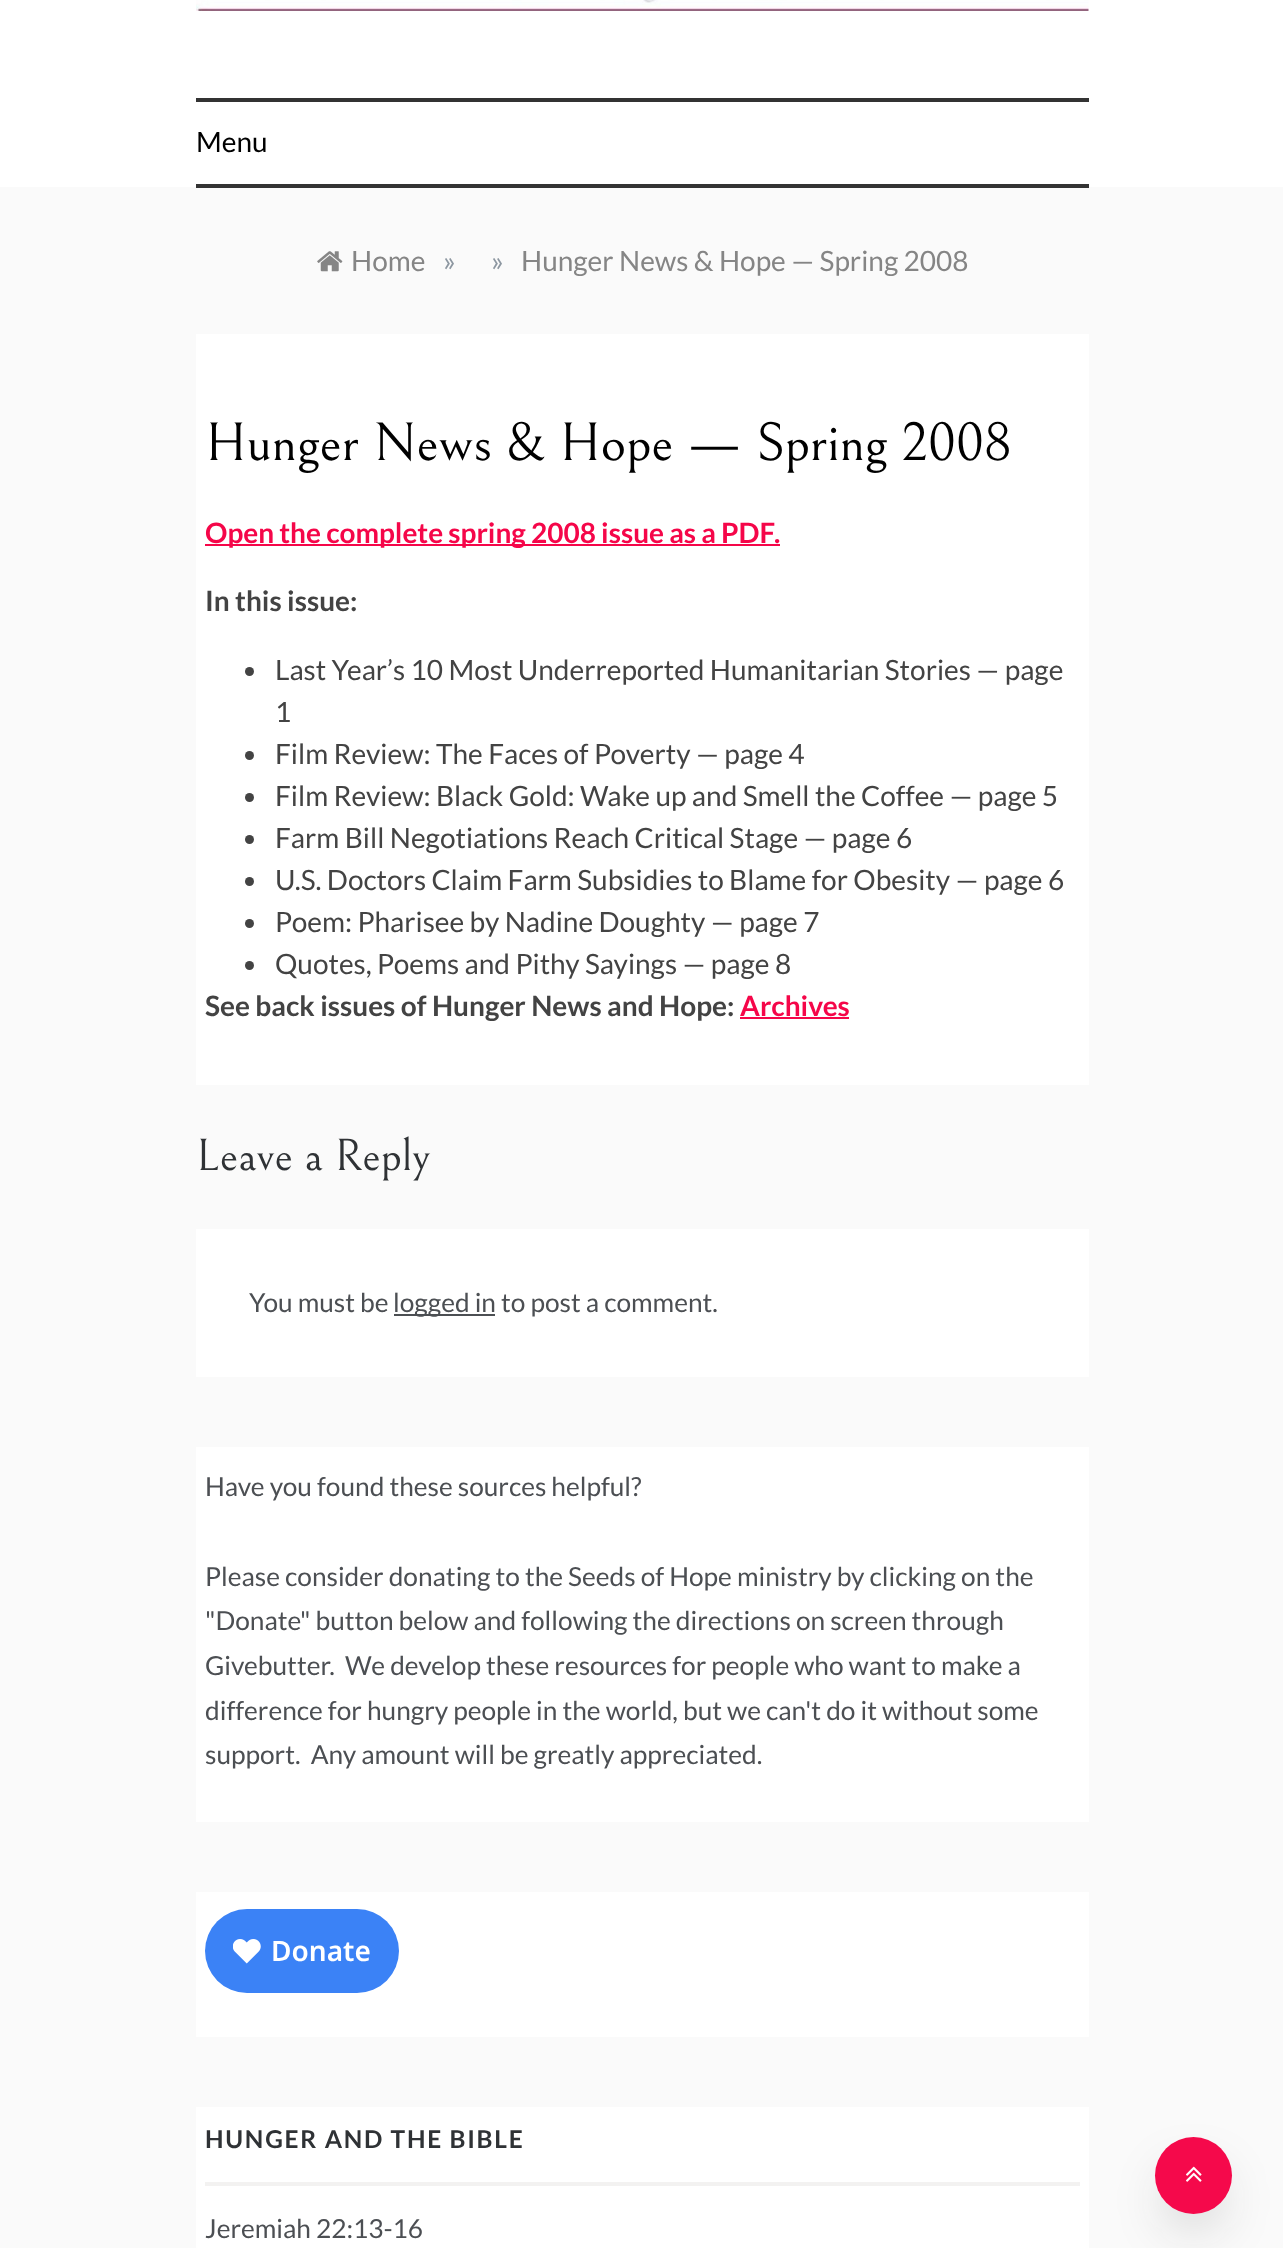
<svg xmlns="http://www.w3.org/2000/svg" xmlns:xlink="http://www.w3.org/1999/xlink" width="1283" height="2248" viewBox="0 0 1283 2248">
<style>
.cls-1{font:28px Lato;fill:#000000}
.cls-2{font:28px Lato;fill:#858585}
.cls-3{font:28px Lato;fill:#8d97a1}
.cls-4{font:54.6px Bellefair;fill:#000000}
.cls-5{font:bold 28px Lato;fill:#f50649}
.cls-6{font:bold 28px Lato;fill:#434343}
.cls-7{font:28px Lato;fill:#434343}
.cls-8{font:45.5px Bellefair;fill:#2f3235}
.cls-9{font:26.25px Lato;fill:#4c4f53}
.cls-10{font:600 28px Noto Sans;fill:#ffffff}
.cls-11{font:bold 24.5px Lato;letter-spacing:1.75px;fill:#2f3235}
</style>
<rect width="100%" height="100%" fill="#fafafa"/>
<rect fill="#ffffff" x="0" y="0" width="1283" height="187"/>
<image xlink:href="image0.png" x="196" y="0" width="893" height="11"/>
<rect fill="#333333" x="196" y="98" width="893" height="4"/>
<rect fill="#333333" x="196" y="184" width="893" height="4"/>
<image xlink:href="image1.png" x="317" y="251" width="26" height="21"/>
<rect fill="#ffffff" x="196" y="334" width="893" height="751"/>
<rect fill="#f50649" x="205" y="544" width="575" height="2"/>
<circle fill="#434343" cx="249.5" cy="671.5" r="4.5"/>
<circle fill="#434343" cx="249.5" cy="755.5" r="4.5"/>
<circle fill="#434343" cx="249.5" cy="797.5" r="4.5"/>
<circle fill="#434343" cx="249.5" cy="839.5" r="4.5"/>
<circle fill="#434343" cx="249.5" cy="881.5" r="4.5"/>
<circle fill="#434343" cx="249.5" cy="923.5" r="4.5"/>
<circle fill="#434343" cx="249.5" cy="965.5" r="4.5"/>
<rect fill="#f50649" x="740" y="1017" width="109" height="2"/>
<rect fill="#ffffff" x="196" y="1229" width="893" height="148"/>
<rect fill="#4c4f53" x="394" y="1314" width="101" height="2"/>
<rect fill="#ffffff" x="196" y="1447" width="893" height="375"/>
<rect fill="#ffffff" x="196" y="1892" width="893" height="145"/>
<rect fill="#3b82f6" x="205" y="1909" width="194" height="84" rx="42"/>
<image xlink:href="image2.png" x="233" y="1939" width="28" height="25"/>
<rect fill="#ffffff" x="196" y="2107" width="893" height="141"/>
<rect fill="#f3f2f1" x="205" y="2182" width="875" height="4"/>
<rect fill="#111417" fill-opacity="0.15" filter="blur(24.5px)" x="1162" y="2168" width="63" height="63" rx="31.5"/>
<circle fill="#f5094b" cx="1193.5" cy="2175.5" r="38.5"/>
<image xlink:href="image3.png" x="1186" y="2166" width="16" height="16"/>
<text class="cls-1" x="196" y="152">Menu</text>
<text class="cls-2" x="351" y="271">Home</text>
<text class="cls-3" x="443" y="271">»</text>
<text class="cls-3" x="491" y="271">»</text>
<text class="cls-2" x="521" y="271">Hunger News &amp; Hope — Spring 2008</text>
<text class="cls-4" x="205" y="460">Hunger News &amp; Hope — Spring 2008</text>
<text class="cls-5" x="205" y="543" word-spacing="-0.25">Open the complete spring 2008 issue as a PDF</text>
<text class="cls-5" x="774" y="543">.</text>
<text class="cls-6" x="205" y="611">In this issue:</text>
<text class="cls-7"><tspan x="275" y="680">Last Year’s 10 Most Underreported Humanitarian Stories — page</tspan><tspan x="275" y="722">1</tspan><tspan x="275" y="764">Film Review: The Faces of Poverty — page 4</tspan><tspan x="275" y="806">Film Review: Black Gold: Wake up and Smell the Coffee — page 5</tspan><tspan x="275" y="848">Farm Bill Negotiations Reach Critical Stage — page 6</tspan><tspan x="275" y="890">U.S. Doctors Claim Farm Subsidies to Blame for Obesity — page 6</tspan><tspan x="275" y="932">Poem: Pharisee by Nadine Doughty — page 7</tspan><tspan x="275" y="974">Quotes, Poems and Pithy Sayings — page 8</tspan></text>
<text class="cls-6" x="205" y="1016">See back issues of Hunger News and Hope:</text>
<text class="cls-5" x="740" y="1016">Archives</text>
<text class="cls-8" x="196" y="1170">Leave a Reply</text>
<text class="cls-9" x="249" y="1312">You must be</text>
<text class="cls-9" x="393" y="1312">logged in to post a comment.</text>
<text class="cls-9" x="205" y="1496">Have you found these sources helpful?</text>
<text class="cls-9" xml:space="preserve"><tspan x="205" y="1586">Please consider donating to the Seeds of Hope ministry by clicking on the</tspan><tspan x="205" y="1630">"Donate" button below and following the directions on screen through</tspan><tspan x="205" y="1675">Givebutter.  We develop these resources for people who want to make a</tspan><tspan x="205" y="1720">difference for hungry people in the world, but we can't do it without some</tspan><tspan x="205" y="1764">support.  Any amount will be greatly appreciated.</tspan></text>
<text class="cls-10" x="271" y="1961">Donate</text>
<text class="cls-11" x="205" y="2148">HUNGER AND THE BIBLE</text>
<text class="cls-9" x="205" y="2238">Jeremiah 22:13-16</text>
</svg>
